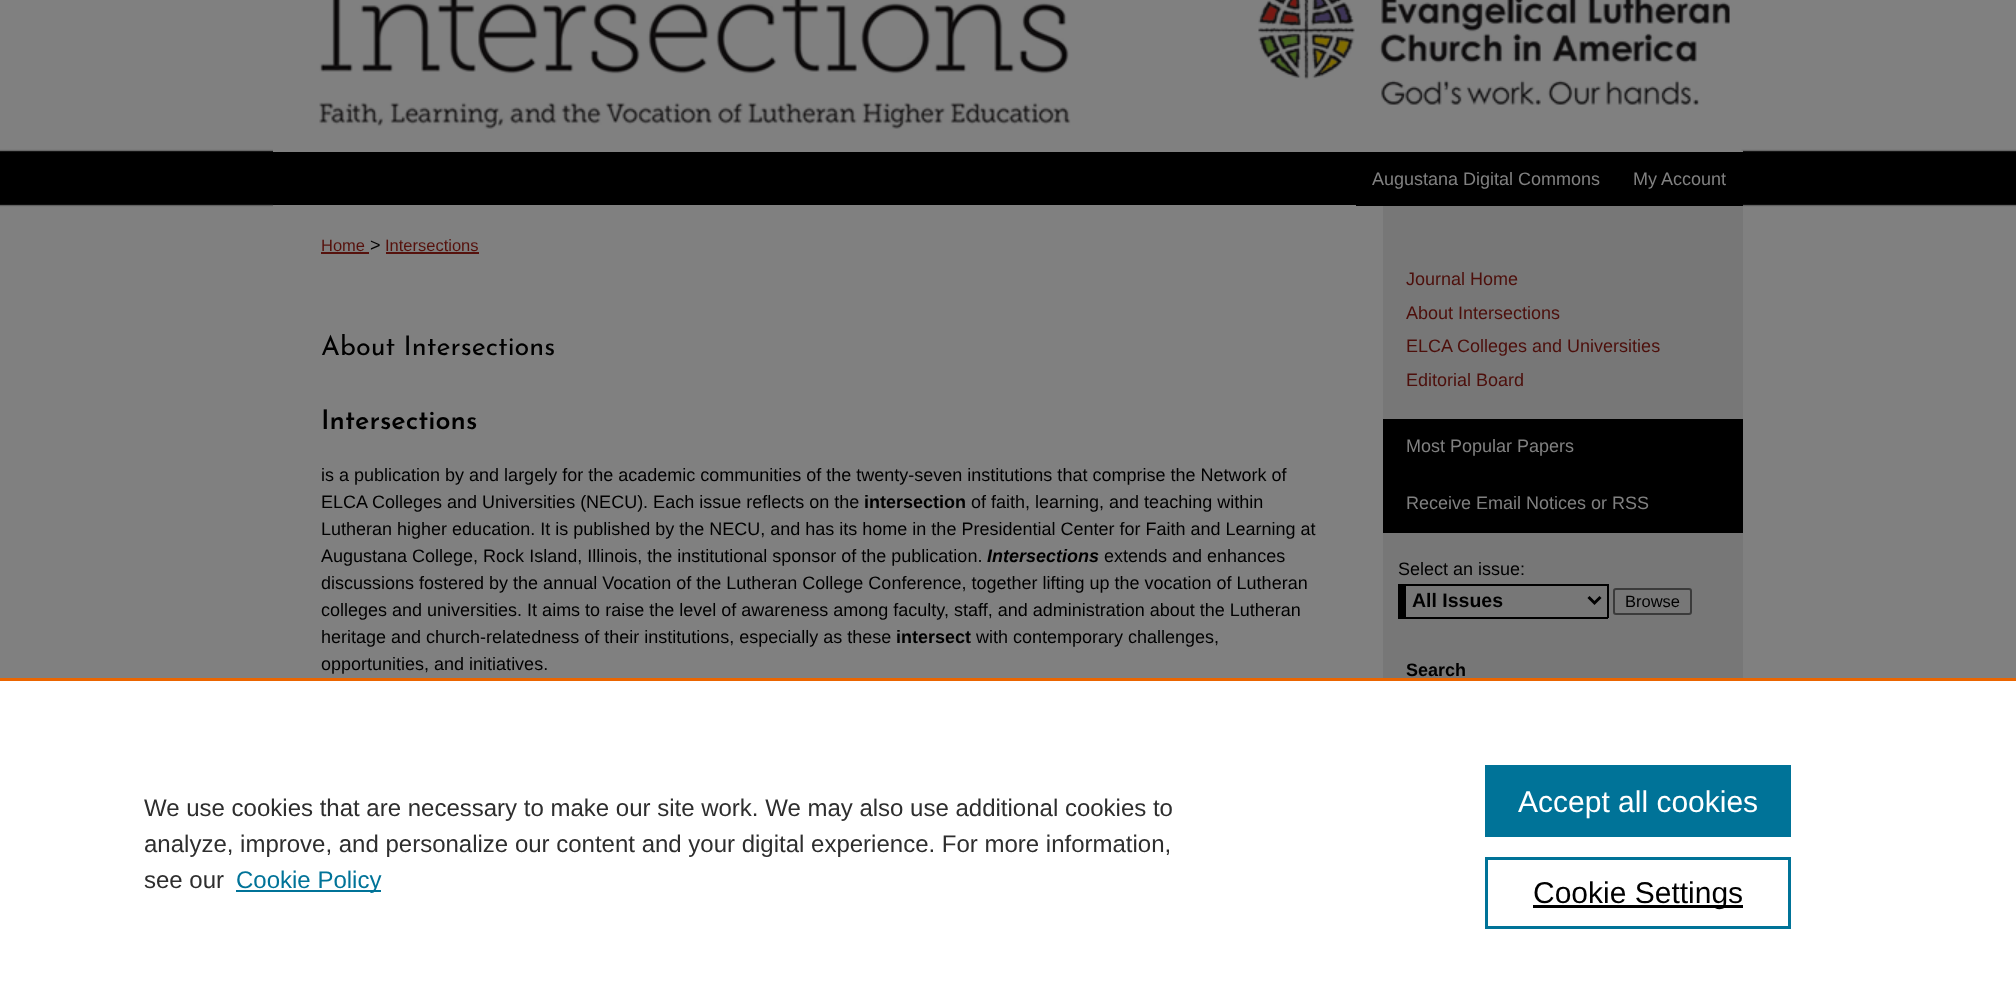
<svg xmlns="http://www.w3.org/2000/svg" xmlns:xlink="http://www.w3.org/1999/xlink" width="2016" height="1008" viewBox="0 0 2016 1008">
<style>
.cls-1{font:18px Liberation Sans;fill:#808080}
.cls-2{font:16.5px Liberation Sans;fill:#56110c}
.cls-3{font:18px Liberation Sans;fill:#000000}
.cls-4{font:27px Josefin Sans;fill:#000000}
.cls-5{font:600 27px Josefin Sans;fill:#000000}
.cls-6{font:bold 18px Liberation Sans;fill:#000000}
.cls-7{font:italic bold 18px Liberation Sans;fill:#000000}
.cls-8{font:18px Liberation Sans;fill:#4d0f0b}
.cls-9{font:bold 19.5px Liberation Sans;fill:#000000}
.cls-10{font:16.5px Liberation Sans;fill:#000000}
.cls-11{font:24px Liberation Sans;fill:#2e2e2e}
.cls-12{font:24px Liberation Sans;fill:#007398}
.cls-13{font:30px Liberation Sans;fill:#ffffff}
.cls-14{font:30px Liberation Sans;fill:#000000}
</style>
<rect width="100%" height="100%" fill="#808080"/>
<image xlink:href="image0.png" x="0" y="149" width="2016" height="58"/>
<rect fill="#808080" x="273" y="149" width="1470" height="3"/>
<image xlink:href="image1.png" x="319" y="0" width="752" height="129"/>
<image xlink:href="image2.png" x="1258" y="0" width="485" height="151"/>
<rect fill="#000000" x="273" y="204" width="1470" height="2"/>
<rect fill="#808080" x="273" y="205" width="1110" height="2"/>
<rect fill="#000000" x="1356" y="205" width="27" height="1"/>
<rect fill="#777777" x="1383" y="206" width="360" height="472"/>
<rect fill="#56110c" x="321" y="252" width="48" height="2"/>
<rect fill="#56110c" x="386" y="252" width="93" height="2"/>
<rect fill="#000000" x="1383" y="419" width="360" height="114"/>
<rect fill="#000000" x="1398" y="584" width="210" height="2"/>
<rect fill="#000000" x="1607" y="584" width="2" height="34"/>
<rect fill="#000000" x="1398" y="617" width="210" height="2"/>
<rect fill="#000000" x="1398" y="584" width="8" height="34"/>
<path fill="none" stroke="#000000" stroke-width="3" d="M1588.5 597L1594.5 603L1600.5 597"/>
<rect fill="none" stroke="#3b3b3b" stroke-width="2" x="1614" y="589" width="77" height="25" rx="2"/>
<rect fill="#ffffff" x="0" y="681" width="2016" height="327"/>
<rect fill="#eb6500" x="0" y="678" width="2016" height="3"/>
<rect fill="#007398" x="236" y="890" width="145" height="2"/>
<rect fill="#007398" x="1485" y="765" width="306" height="72"/>
<rect fill="none" stroke="#007398" stroke-width="3" x="1486.5" y="858.5" width="303" height="69"/>
<rect fill="#000000" x="1533" y="905" width="210" height="3"/>
<text class="cls-1" x="1372" y="185">Augustana Digital Commons</text>
<text class="cls-1" x="1633" y="185">My Account</text>
<text class="cls-2" x="321" y="251">Home</text>
<text class="cls-3" x="370" y="251">&gt;</text>
<text class="cls-2" x="385" y="251">Intersections</text>
<text class="cls-4" x="321" y="355">About Intersections</text>
<text class="cls-5" x="321" y="429">Intersections</text>
<text class="cls-3"><tspan x="321" y="481">is a publication by and largely for the academic communities of the twenty-seven institutions that comprise the Network of</tspan><tspan x="321" y="508">ELCA Colleges and Universities (NECU). Each issue reflects on the</tspan></text>
<text class="cls-6" x="864" y="508">intersection</text>
<text class="cls-3" x="971" y="508">of faith, learning, and teaching within</text>
<text class="cls-3"><tspan x="321" y="535">Lutheran higher education. It is published by the NECU, and has its home in the Presidential Center for Faith and Learning at</tspan><tspan x="321" y="562">Augustana College, Rock Island, Illinois, the institutional sponsor of the publication.</tspan></text>
<text class="cls-7" x="987" y="562">Intersections</text>
<text class="cls-3" x="1104" y="562">extends and enhances</text>
<text class="cls-3"><tspan x="321" y="589">discussions fostered by the annual Vocation of the Lutheran College Conference, together lifting up the vocation of Lutheran</tspan><tspan x="321" y="616">colleges and universities. It aims to raise the level of awareness among faculty, staff, and administration about the Lutheran</tspan><tspan x="321" y="643">heritage and church-relatedness of their institutions, especially as these</tspan></text>
<text class="cls-6" x="896" y="643">intersect</text>
<text class="cls-3" x="976" y="643">with contemporary challenges,</text>
<text class="cls-3" x="321" y="670">opportunities, and initiatives.</text>
<text class="cls-8"><tspan x="1406" y="285">Journal Home</tspan><tspan x="1406" y="319">About Intersections</tspan><tspan x="1406" y="352">ELCA Colleges and Universities</tspan><tspan x="1406" y="386">Editorial Board</tspan></text>
<text class="cls-1" x="1406" y="452">Most Popular Papers</text>
<text class="cls-1" x="1406" y="509">Receive Email Notices or RSS</text>
<text class="cls-3" x="1398" y="575">Select an issue:</text>
<text class="cls-9" x="1412" y="607">All Issues</text>
<text class="cls-10" x="1625" y="607">Browse</text>
<text class="cls-6" x="1406" y="676">Search</text>
<text class="cls-11"><tspan x="144" y="816">We use cookies that are necessary to make our site work. We may also use additional cookies to</tspan><tspan x="144" y="852">analyze, improve, and personalize our content and your digital experience. For more information,</tspan><tspan x="144" y="888">see our</tspan></text>
<text class="cls-12" x="236" y="888">Cookie Policy</text>
<text class="cls-13" x="1518" y="812">Accept all cookies</text>
<text class="cls-14" x="1533" y="903">Cookie Settings</text>
</svg>
